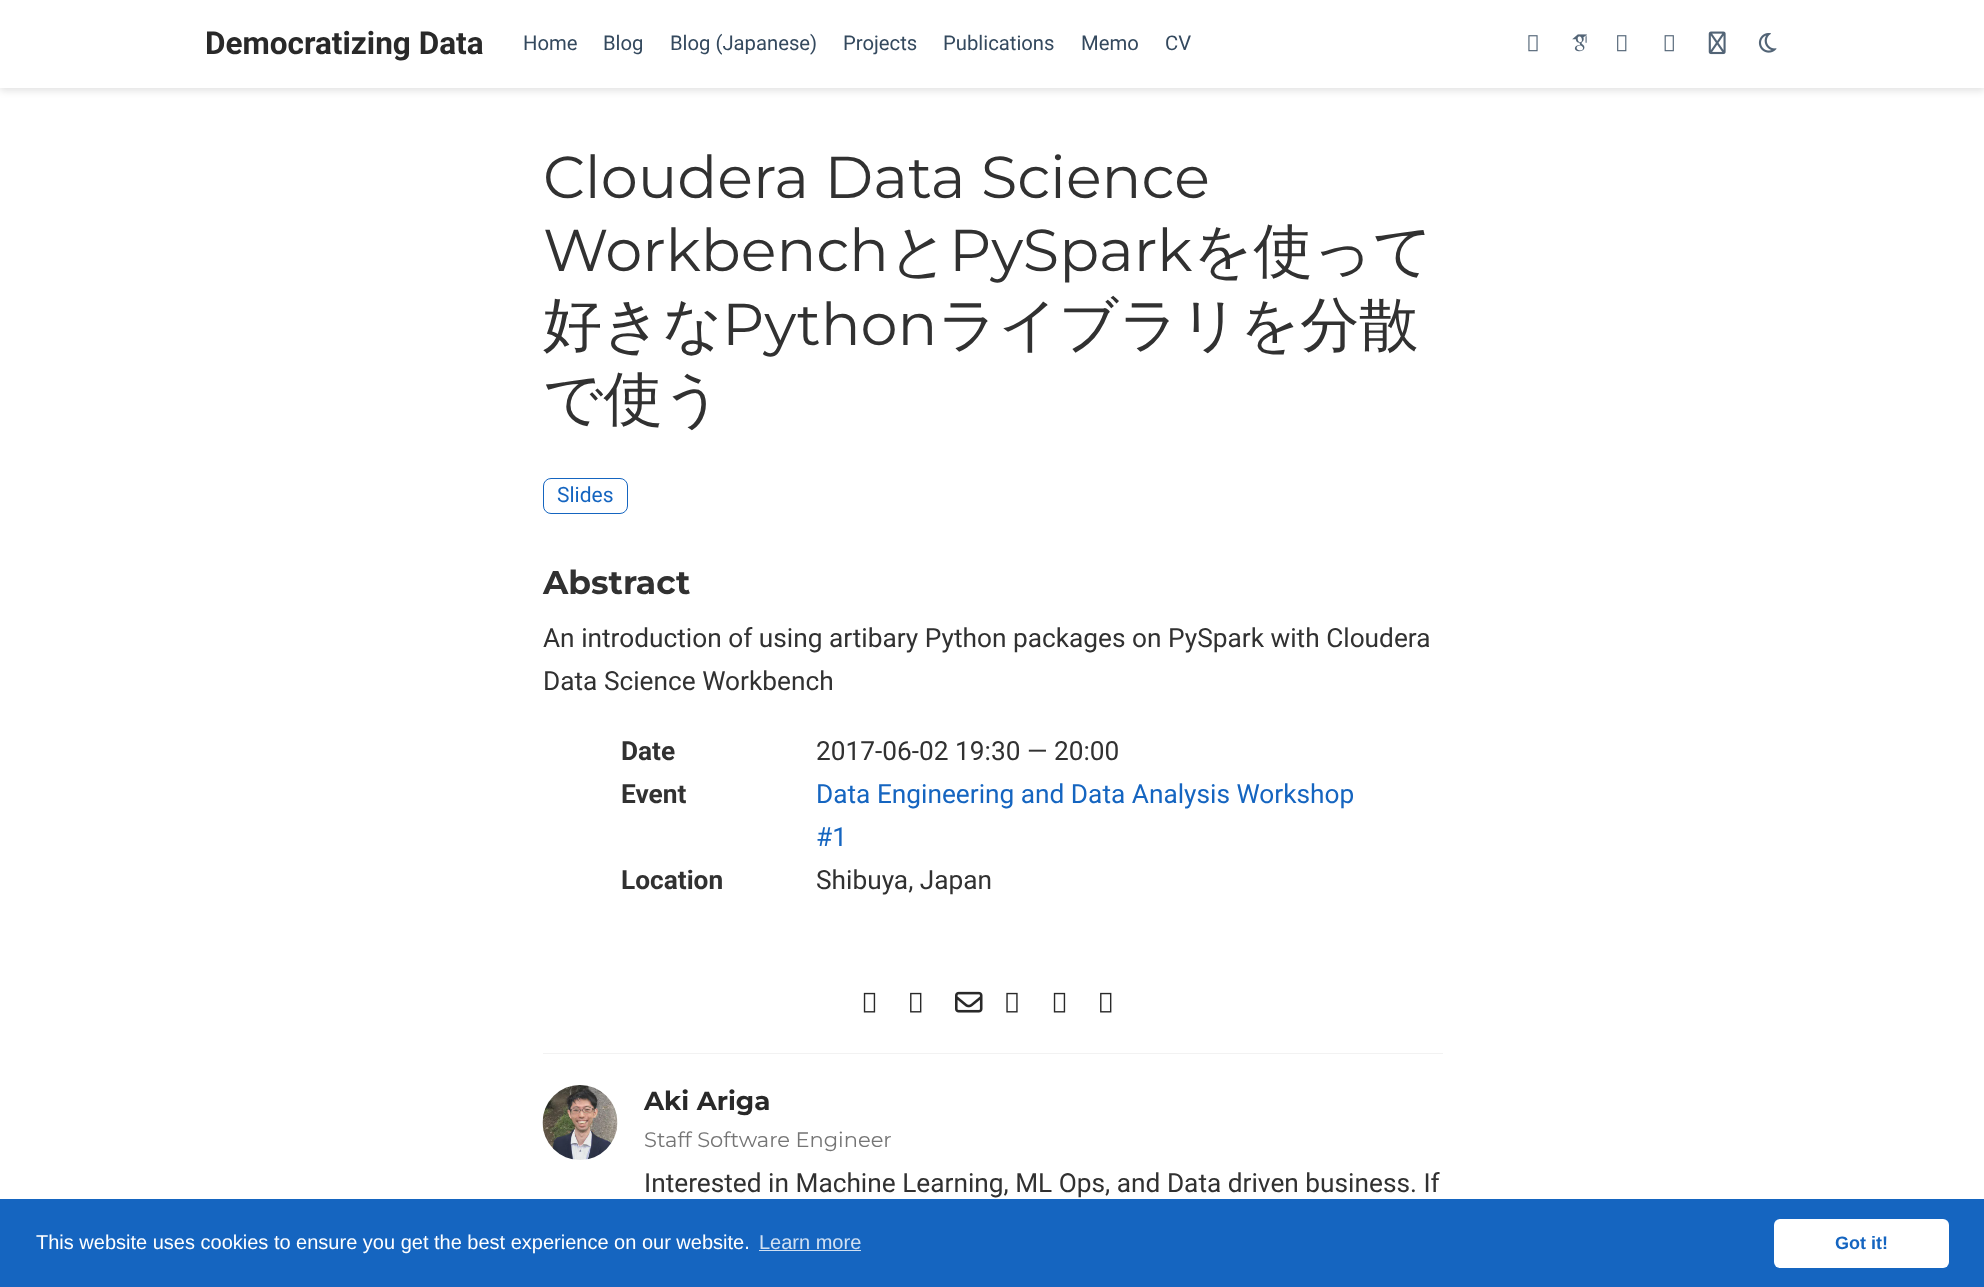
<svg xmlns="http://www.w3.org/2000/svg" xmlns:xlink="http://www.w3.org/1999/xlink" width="1984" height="1287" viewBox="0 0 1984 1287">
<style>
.cls-1{font:bold 31.5px Roboto;fill:#292929}
.cls-2{font:20.25px Roboto;fill:#34495e}
.cls-3{font:59px Montserrat;fill:#313131}
.cls-4{font:500 59px WenQuanYi Zen Hei;fill:#313131}
.cls-5{font:21px Roboto;fill:#1565c0}
.cls-6{font:bold 33px Montserrat;fill:#313131}
.cls-7{font:26.25px Roboto;fill:#313131}
.cls-8{font:bold 26.25px Roboto;fill:#313131}
.cls-9{font:26.25px Roboto;fill:#1565c0}
.cls-10{font:bold 26.25px Montserrat;fill:#292929}
.cls-11{font:21px Montserrat;fill:#757575}
.cls-12{font:20px Liberation Sans;fill:#ffffff}
.cls-13{font:20px Liberation Sans;fill:#d0e0f2}
.cls-14{font:bold 18px Liberation Sans;fill:#1565c0}
</style>
<rect width="100%" height="100%" fill="#ffffff"/>
<rect fill="#000000" fill-opacity="0.11" filter="blur(3.5px)" x="0" y="4" width="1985" height="87"/>
<rect fill="#ffffff" x="0" y="0" width="1984" height="88"/>
<image xlink:href="image0.png" x="1528" y="35" width="10" height="17"/>
<image xlink:href="image1.png" x="1572" y="34" width="15" height="18"/>
<image xlink:href="image2.png" x="1617" y="35" width="10" height="17"/>
<image xlink:href="image3.png" x="1664" y="35" width="10" height="17"/>
<image xlink:href="image4.png" x="1708" y="31" width="18" height="24"/>
<image xlink:href="image5.png" x="1758" y="33" width="19" height="20"/>
<rect fill="none" stroke="#1565c0" x="543.5" y="478.5" width="84" height="35" rx="7.5"/>
<image xlink:href="image6.png" x="863" y="992" width="13" height="21"/>
<image xlink:href="image7.png" x="910" y="992" width="12" height="21"/>
<image xlink:href="image8.png" x="955" y="991" width="28" height="22"/>
<image xlink:href="image9.png" x="1006" y="992" width="12" height="21"/>
<image xlink:href="image6.png" x="1053" y="992" width="13" height="21"/>
<image xlink:href="image7.png" x="1100" y="992" width="12" height="21"/>
<rect fill="#f2f2f2" x="543" y="1053" width="900" height="1"/>
<image xlink:href="image10.png" x="542" y="1085" width="76" height="75"/>
<rect fill="#1565c0" x="0" y="1199" width="1984" height="88"/>
<rect fill="#d0e0f2" x="759" y="1250" width="102" height="1"/>
<rect fill="#ffffff" x="1774" y="1219" width="175" height="49" rx="6"/>
<text class="cls-1" x="205" y="54">Democratizing Data</text>
<text class="cls-2" x="523" y="50">Home</text>
<text class="cls-2" x="603" y="50">Blog</text>
<text class="cls-2" x="670" y="50">Blog (Japanese)</text>
<text class="cls-2" x="843" y="50">Projects</text>
<text class="cls-2" x="943" y="50">Publications</text>
<text class="cls-2" x="1081" y="50">Memo</text>
<text class="cls-2" x="1165" y="50">CV</text>
<text class="cls-3"><tspan x="543" y="198">Cloudera Data Science</tspan><tspan x="543" y="271">Workbench</tspan></text>
<text class="cls-4" x="889" y="271">と</text>
<text class="cls-3" x="949" y="271">PySpark</text>
<text class="cls-4" x="1193" y="271">を使って</text>
<text class="cls-4" x="543" y="345">好きな</text>
<text class="cls-3" x="722" y="345">Python</text>
<text class="cls-4" x="938" y="345">ライブラリを分散</text>
<text class="cls-4" x="543" y="419">で使う</text>
<text class="cls-5" x="557" y="502">Slides</text>
<text class="cls-6" x="543" y="594">Abstract</text>
<text class="cls-7"><tspan x="543" y="647">An introduction of using artibary Python packages on PySpark with Cloudera</tspan><tspan x="543" y="690">Data Science Workbench</tspan></text>
<text class="cls-8" x="621" y="760">Date</text>
<text class="cls-7" x="816" y="760">2017-06-02 19:30 — 20:00</text>
<text class="cls-8" x="621" y="803">Event</text>
<text class="cls-9"><tspan x="816" y="803">Data Engineering and Data Analysis Workshop</tspan><tspan x="816" y="846">#1</tspan></text>
<text class="cls-8" x="621" y="889">Location</text>
<text class="cls-7" x="816" y="889">Shibuya, Japan</text>
<text class="cls-10" x="644" y="1110">Aki Ariga</text>
<text class="cls-11" x="644" y="1147">Staff Software Engineer</text>
<text class="cls-7" x="644" y="1192">Interested in Machine Learning, ML Ops, and Data driven business. If</text>
<text class="cls-12" x="36" y="1249">This website uses cookies to ensure you get the best experience on our website.</text>
<text class="cls-13" x="759" y="1249">Learn more</text>
<text class="cls-14" x="1835" y="1249">Got it!</text>
</svg>
